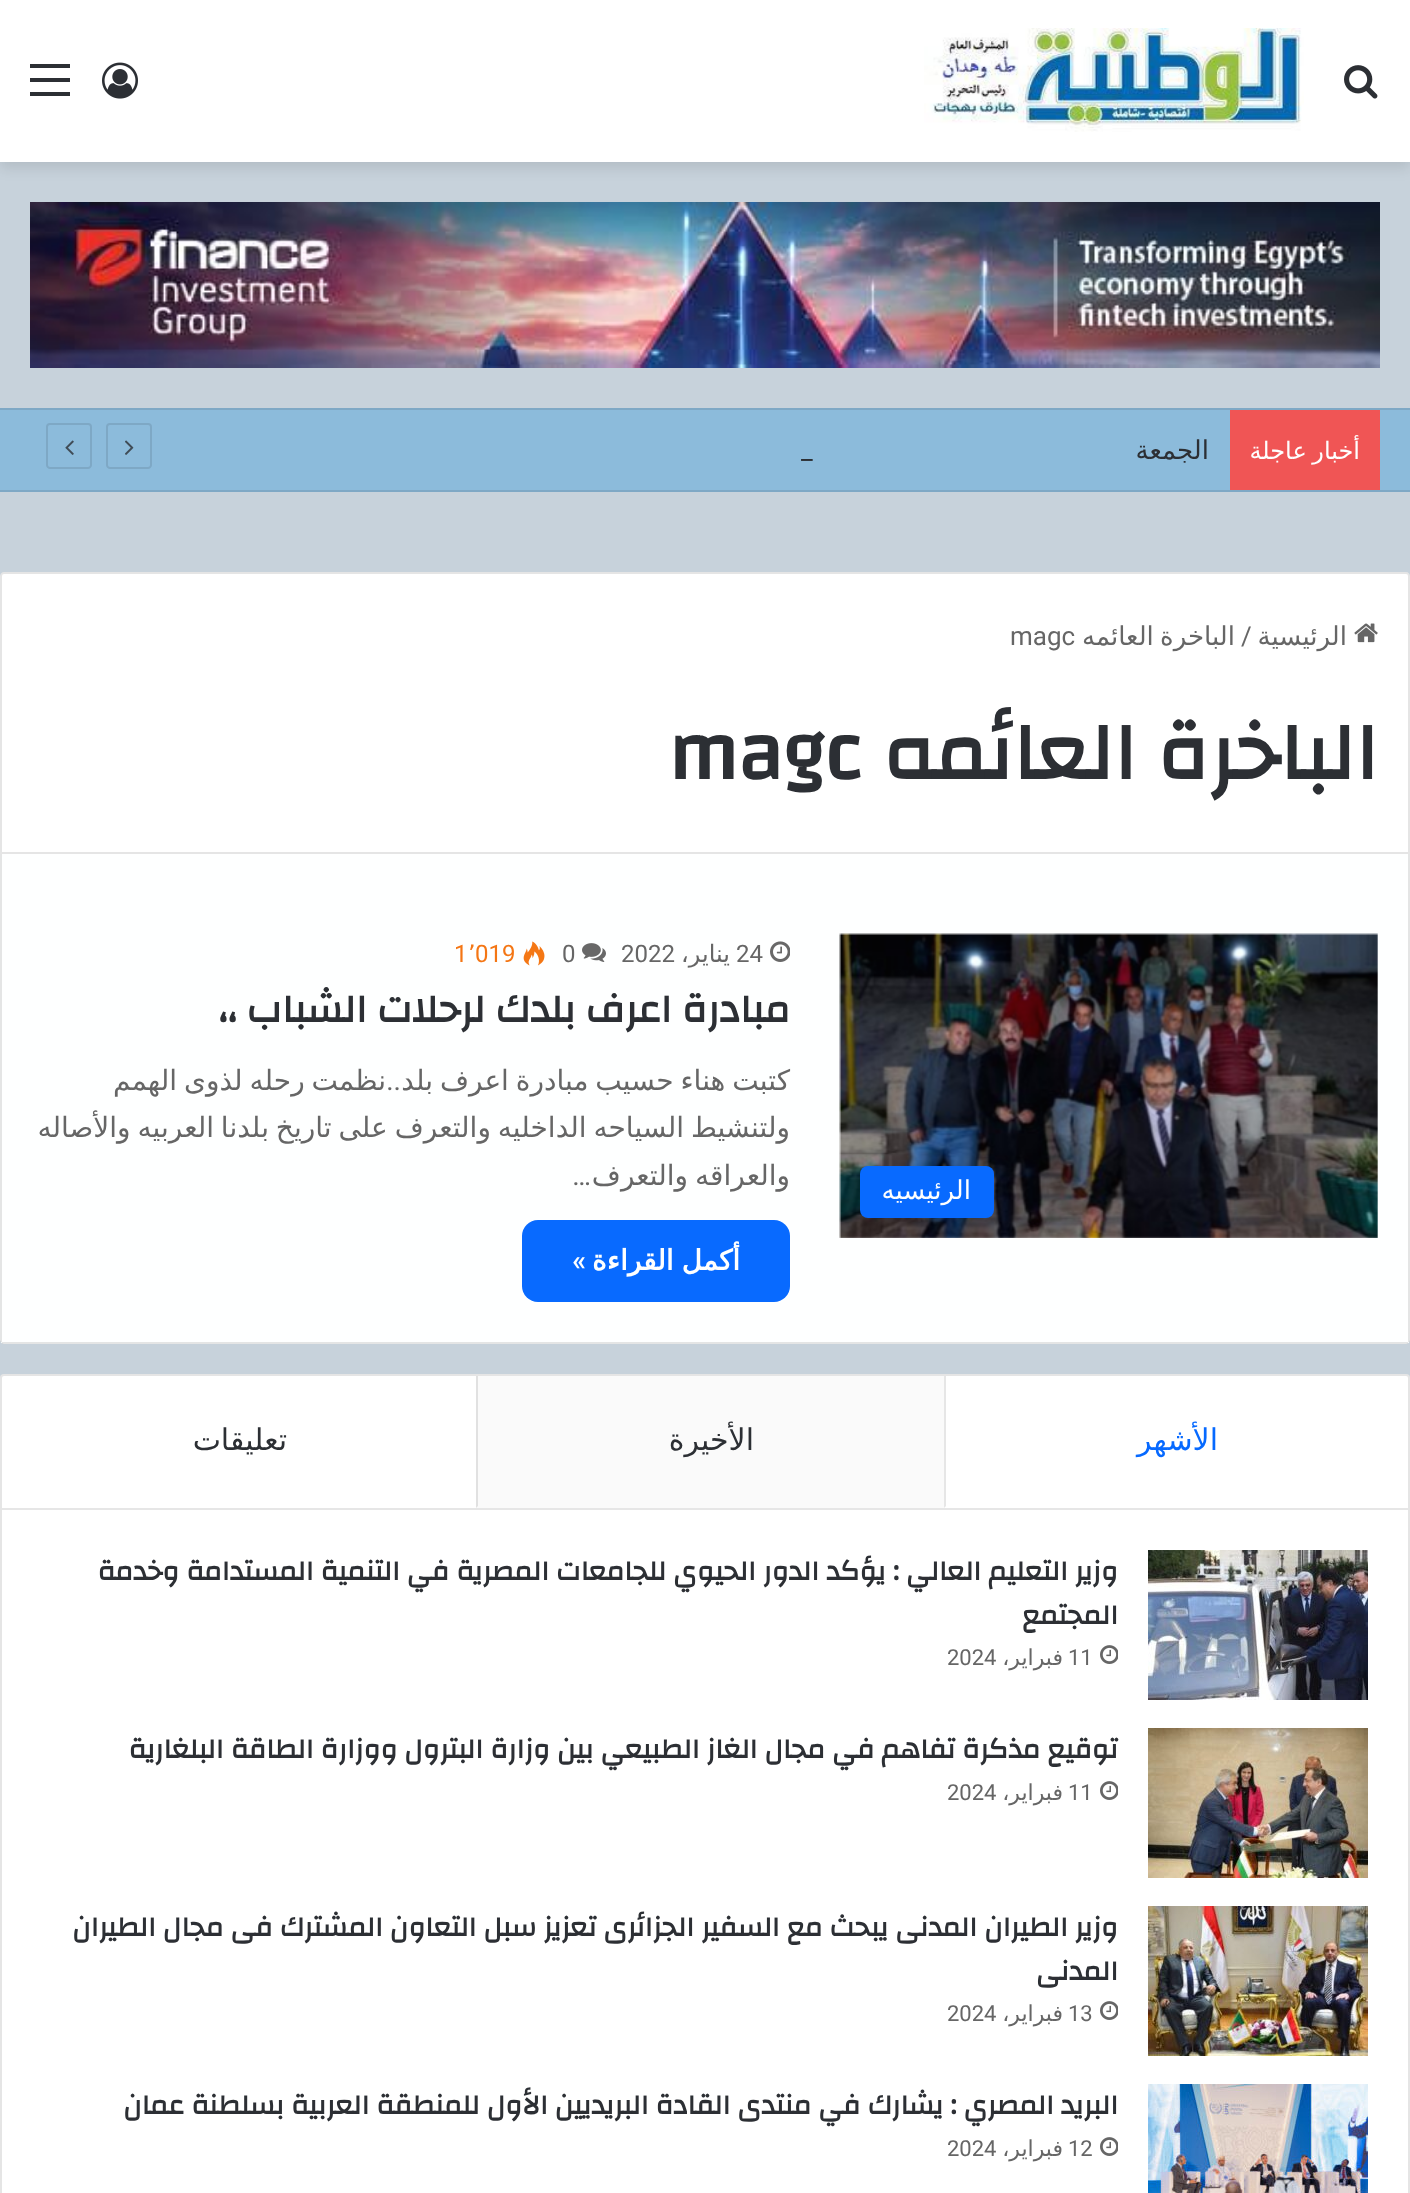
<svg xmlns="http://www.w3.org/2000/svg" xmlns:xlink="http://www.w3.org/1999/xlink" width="1410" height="2193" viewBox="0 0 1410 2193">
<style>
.cls-1{font:24px DejaVu Sans;direction:rtl;fill:#feffff}
.cls-2{font:26px DejaVu Sans;direction:rtl;fill:#2c2f34}
.cls-3{font:26px Roboto;fill:#2c2f34}
.cls-4{font:26px DejaVu Sans;direction:rtl;fill:#666666}
.cls-5{font:26px Roboto;fill:#666666}
.cls-6{font:bold 82px Changa;direction:rtl;fill:#2c2f34}
.cls-7{font:bold 82px Changa;fill:#2c2f34}
.cls-8{font:26px DejaVu Sans;direction:rtl;fill:#feffff}
.cls-9{font:24px Roboto;fill:#666666}
.cls-10{font:24px DejaVu Sans;direction:rtl;fill:#666666}
.cls-11{font:24px Roboto;fill:#f47614}
.cls-12{font:24px DejaVu Sans;fill:#f47614}
.cls-13{font:bold 40px Changa;direction:rtl;fill:#2c2f34}
.cls-14{font:28px DejaVu Sans;direction:rtl;fill:#666666}
.cls-15{font:28px Roboto;direction:rtl;fill:#666666}
.cls-16{font:bold 28px DejaVu Sans;direction:rtl;fill:#feffff}
.cls-17{font:600 28px Roboto;direction:rtl;fill:#feffff}
.cls-18{font:30px DejaVu Sans;direction:rtl;fill:#0669ff}
.cls-19{font:30px DejaVu Sans;direction:rtl;fill:#2c2f34}
.cls-20{font:bold 28px Changa;direction:rtl;fill:#2c2f34}
.cls-21{font:22px Roboto;fill:#666666}
.cls-22{font:22px DejaVu Sans;direction:rtl;fill:#666666}
</style>
<rect width="100%" height="100%" fill="#c7d2db"/>
<rect fill="#000000" fill-opacity="0.1" filter="blur(7px)" x="0" y="6" width="1410" height="162"/>
<rect fill="#ffffff" x="0" y="0" width="1410" height="162"/>
<image xlink:href="image0.png" x="1344" y="65" width="34" height="34"/>
<image xlink:href="image1.png" x="924" y="28" width="380" height="104"/>
<image xlink:href="image2.png" x="102" y="62" width="36" height="37"/>
<rect fill="#2c2f34" x="30" y="78" width="40" height="4"/>
<rect fill="#2c2f34" x="30" y="64" width="40" height="4"/>
<rect fill="#2c2f34" x="30" y="92" width="40" height="4"/>
<image xlink:href="image3.png" x="30" y="202" width="1350" height="166"/>
<rect fill="#8cbbdb" x="0" y="410" width="1410" height="80"/>
<rect fill="#7ea8c5" x="0" y="408" width="1410" height="2"/>
<rect fill="#7ea8c5" x="0" y="490" width="1410" height="2"/>
<rect fill="#f05555" x="1230" y="410" width="150" height="80"/>
<path fill="none" stroke="#7ea8c5" stroke-width="2" d="M148 468H110C108.5 468 107 466.5 107 465V427C107 425 108.5 424 110 424H148C149.5 424 151 425 151 427V465C151 466.5 149.5 468 148 468Z"/>
<image xlink:href="image4.png" x="125" y="440" width="9" height="15"/>
<path fill="none" stroke="#7ea8c5" stroke-width="2" d="M88 468H50C48.5 468 47 466.5 47 465V427C47 425 48.5 424 50 424H88C89.5 424 91 425 91 427V465C91 466.5 89.5 468 88 468Z"/>
<image xlink:href="image5.png" x="65" y="440" width="9" height="15"/>
<path fill="#ffffff" d="M4 572H1406C1408 572 1410 574 1410 576V854H0V576C0 574 2 572 4 572Z"/>
<path fill="none" stroke="#000000" stroke-opacity="0.1" stroke-width="2" d="M4 573H1406C1407.5 573 1409 574.5 1409 576V853H1V576C1 574.5 2.5 573 4 573Z"/>
<image xlink:href="image6.png" x="1354" y="623" width="24" height="20"/>
<path fill="#feffff" d="M0 854H1410V1340C1410 1342 1408 1344 1406 1344H4C2 1344 0 1342 0 1340Z"/>
<rect fill="#020202" fill-opacity="0.1" x="1408" y="854" width="2" height="488"/>
<rect fill="#020202" fill-opacity="0.1" x="2" y="1342" width="1406" height="2"/>
<rect fill="#020202" fill-opacity="0.1" x="0" y="854" width="2" height="488"/>
<image xlink:href="image7.png" x="839" y="933" width="539" height="305"/>
<rect fill="#086aff" x="860" y="1166" width="134" height="52" rx="8"/>
<image xlink:href="image8.png" x="770" y="941" width="20" height="21"/>
<image xlink:href="image9.png" x="582" y="943" width="24" height="19"/>
<image xlink:href="image10.png" x="523" y="941" width="22" height="25"/>
<rect fill="#086aff" x="522" y="1220" width="268" height="82" rx="16"/>
<rect fill="#ffffff" x="0" y="1374" width="1410" height="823" rx="4"/>
<rect fill="none" stroke="#000000" stroke-opacity="0.1" stroke-width="2" x="1" y="1375" width="1408" height="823" rx="3"/>
<rect fill="#e6e6e6" x="2" y="1508" width="1406" height="2"/>
<path fill="#e6e6e6" d="M944 1508V1376H946V1506Z"/>
<rect fill="#fafafa" x="476" y="1376" width="468" height="132"/>
<path fill="#e1e1e1" d="M476 1508V1376H478V1506Z"/>
<image xlink:href="image11.png" x="1148" y="1550" width="220" height="150"/>
<image xlink:href="image12.png" x="1100" y="1645" width="18" height="19"/>
<image xlink:href="image13.png" x="1148" y="1728" width="220" height="150"/>
<image xlink:href="image12.png" x="1100" y="1781" width="18" height="19"/>
<image xlink:href="image14.png" x="1148" y="1906" width="220" height="150"/>
<image xlink:href="image12.png" x="1100" y="2001" width="18" height="19"/>
<image xlink:href="image15.png" x="1148" y="2084" width="220" height="109"/>
<image xlink:href="image12.png" x="1100" y="2137" width="18" height="19"/>
<text class="cls-1" x="1360" y="459" word-spacing="-2">أخبار عاجلة</text>
<text class="cls-2" x="1209" y="459">الجمعة</text>
<text class="cls-3" x="801" y="459">_</text>
<text class="cls-4" x="1347" y="645">الرئيسية</text>
<text class="cls-5" x="1241" y="645">/</text>
<text class="cls-4" x="1235" y="645" word-spacing="-2">الباخرة العائمه</text>
<text class="cls-5" x="1010" y="645">magc</text>
<text class="cls-6" x="1378" y="779">الباخرة العائمه</text>
<text class="cls-7" x="668" y="779">magc</text>
<text class="cls-8" x="971" y="1199">الرئيسيه</text>
<text class="cls-9" x="736" y="962">24</text>
<text class="cls-10" x="730" y="962">يناير،</text>
<text class="cls-9" x="621" y="962">2022</text>
<text class="cls-9" x="562" y="962">0</text>
<text class="cls-11" x="475" y="962">019</text>
<text class="cls-12" x="468" y="962">٬</text>
<text class="cls-11" x="454" y="962">1</text>
<text class="cls-13" x="790" y="1022">مبادرة اعرف بلدك لرحلات الشباب ،،</text>
<text class="cls-14" x="790" y="1090" word-spacing="-2">كتبت هناء حسيب مبادرة اعرف بلد</text>
<text class="cls-14" x="386" y="1090" word-spacing="-2">نظمت رحله لذوى الهمم</text>
<text class="cls-15" x="401" y="1090">..</text>
<text class="cls-14"><tspan x="790" y="1137" word-spacing="-2">ولتنشيط السياحه الداخليه والتعرف على تاريخ بلدنا العربيه والأصاله</tspan><tspan x="790" y="1185" word-spacing="-2">والعراقه والتعرف</tspan></text>
<text class="cls-15" x="591" y="1185">…</text>
<text class="cls-16" x="740" y="1270" word-spacing="-1">أكمل القراءة</text>
<text class="cls-17" x="586" y="1270">»</text>
<text class="cls-18" x="1218" y="1450">الأشهر</text>
<text class="cls-19" x="754" y="1450">الأخيرة</text>
<text class="cls-19" x="287" y="1450">تعليقات</text>
<text class="cls-20"><tspan x="1118" y="1580">وزير التعليم العالي : يؤكد الدور الحيوي للجامعات المصرية في التنمية المستدامة وخدمة</tspan><tspan x="1118" y="1624">المجتمع</tspan></text>
<text class="cls-21" x="1068" y="1665">11</text>
<text class="cls-22" x="1063" y="1665">فبراير،</text>
<text class="cls-21" x="947" y="1665">2024</text>
<text class="cls-20" x="1118" y="1758">توقيع مذكرة تفاهم في مجال الغاز الطبيعي بين وزارة البترول ووزارة الطاقة البلغارية</text>
<text class="cls-21" x="1068" y="1800">11</text>
<text class="cls-22" x="1063" y="1800">فبراير،</text>
<text class="cls-21" x="947" y="1800">2024</text>
<text class="cls-20"><tspan x="1118" y="1936">وزير الطيران المدنى يبحث مع السفير الجزائرى تعزيز سبل التعاون المشترك فى مجال الطيران</tspan><tspan x="1118" y="1980">المدنى</tspan></text>
<text class="cls-21" x="1068" y="2021">13</text>
<text class="cls-22" x="1063" y="2021">فبراير،</text>
<text class="cls-21" x="947" y="2021">2024</text>
<text class="cls-20" x="1118" y="2114">البريد المصري : يشارك في منتدى القادة البريديين الأول للمنطقة العربية بسلطنة عمان</text>
<text class="cls-21" x="1068" y="2156">12</text>
<text class="cls-22" x="1063" y="2156">فبراير،</text>
<text class="cls-21" x="947" y="2156">2024</text>
</svg>
